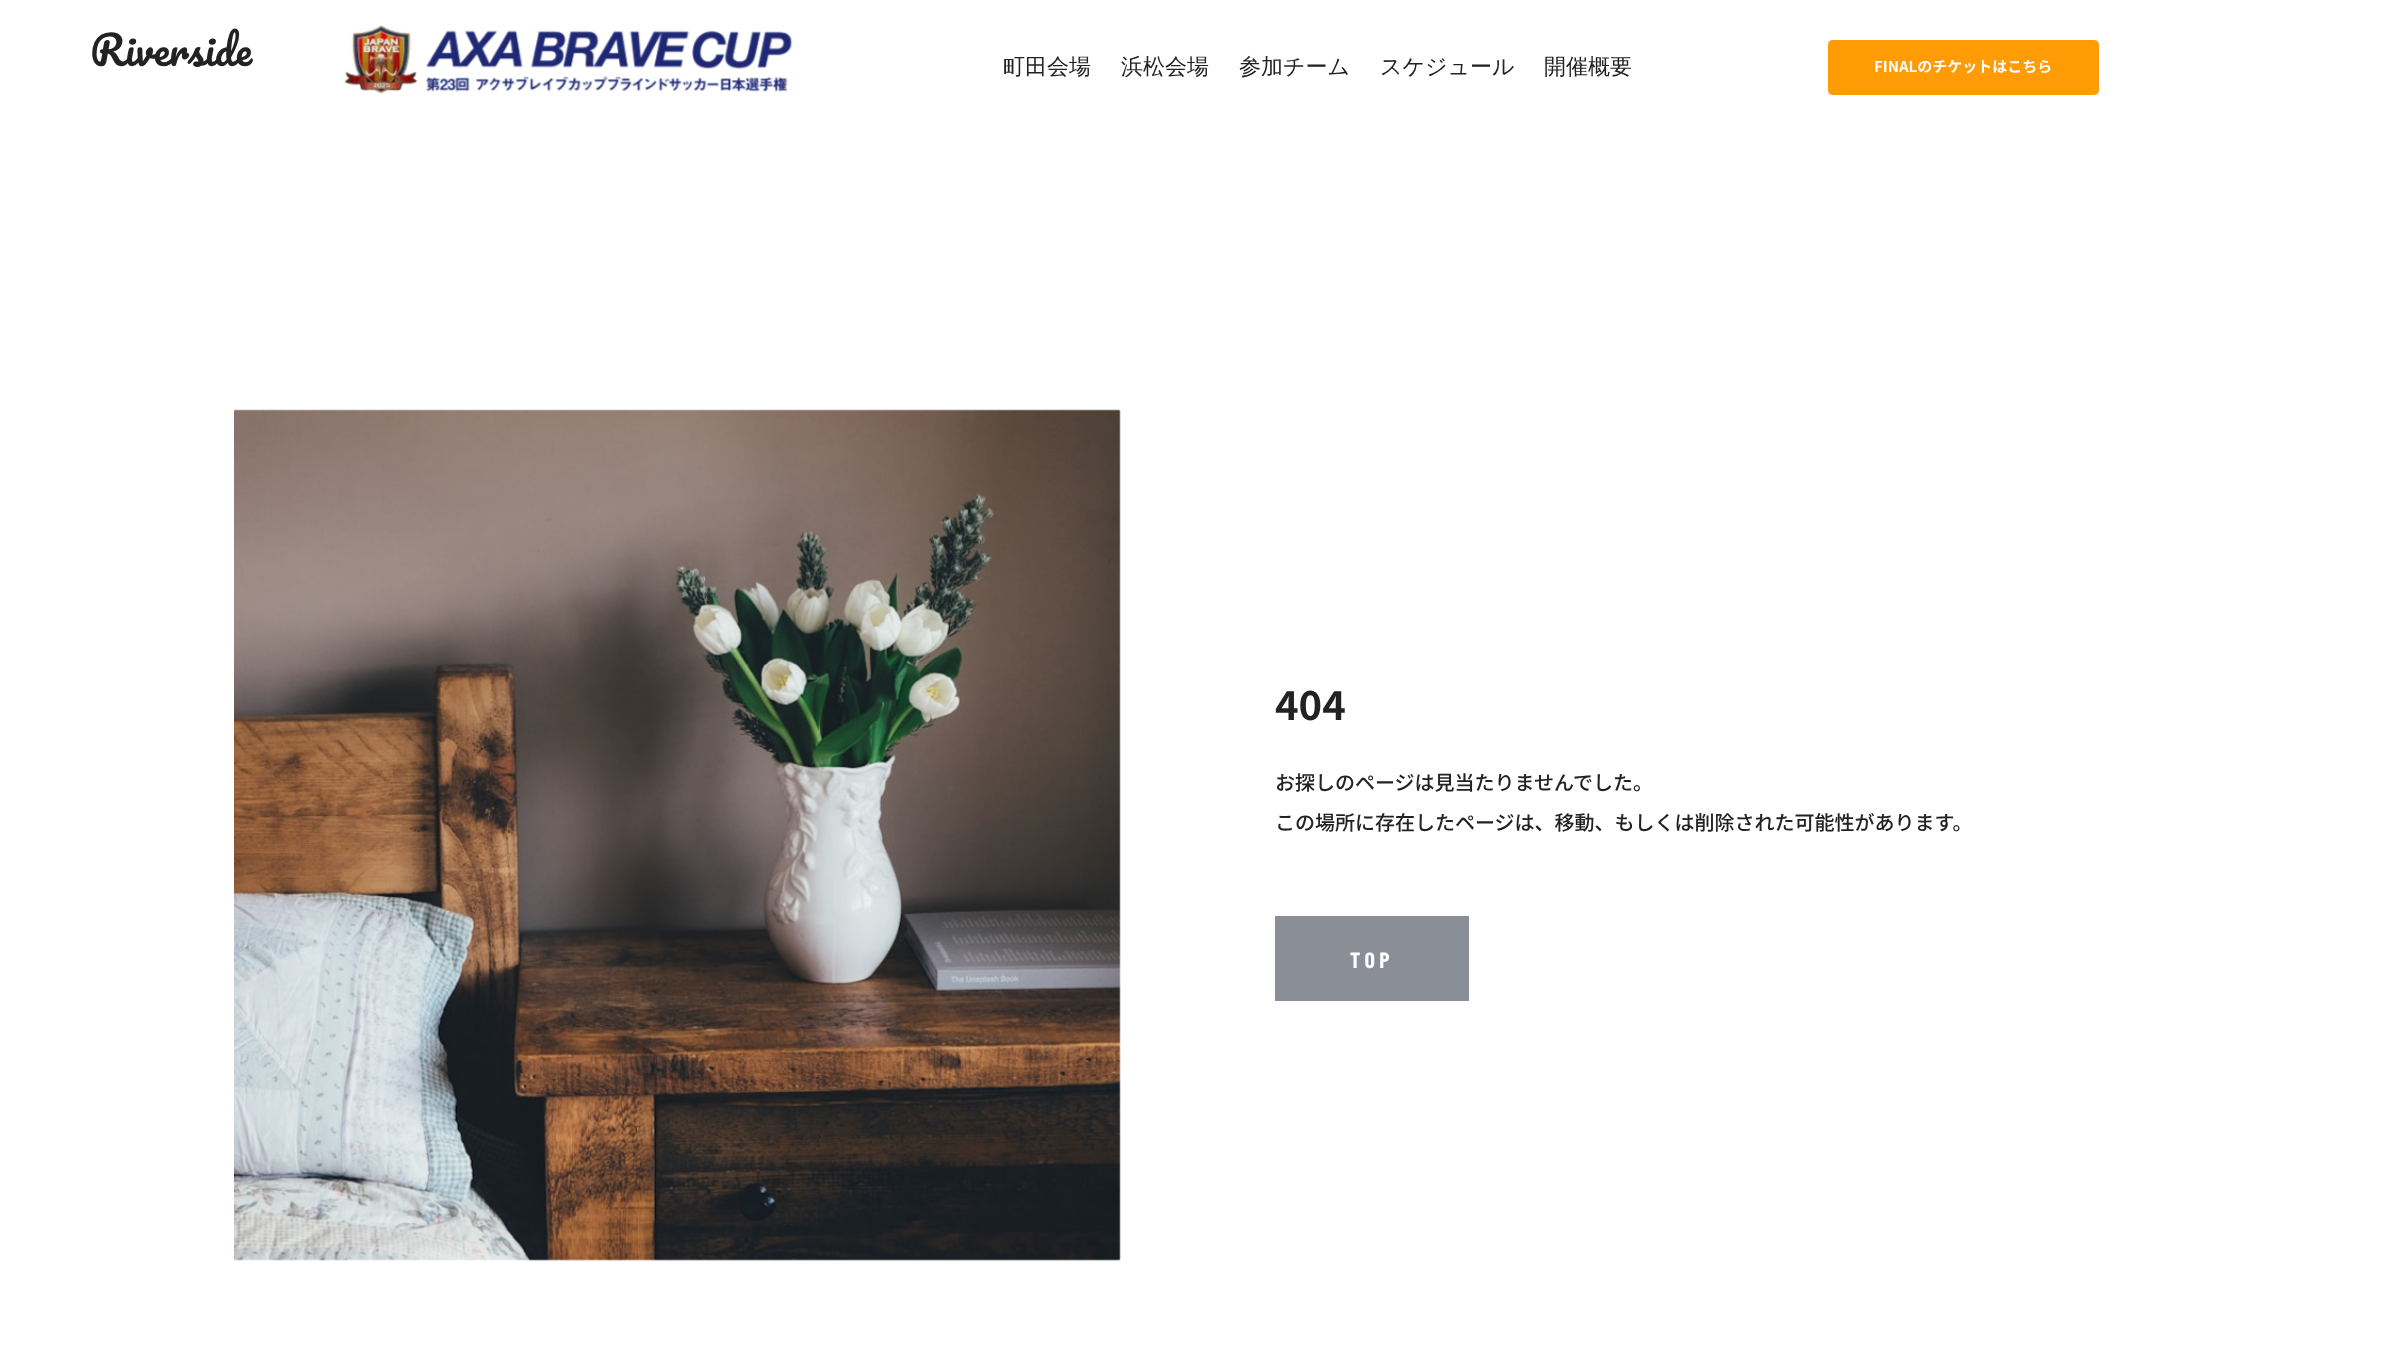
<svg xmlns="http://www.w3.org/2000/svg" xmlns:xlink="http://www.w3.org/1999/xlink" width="2394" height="1355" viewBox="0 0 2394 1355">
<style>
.cls-1{font:40px Pacifico;fill:#222222}
.cls-2{font:500 22px WenQuanYi Zen Hei;fill:#222222}
.cls-3{font:bold 15px Noto Sans JP;fill:#ffffff}
.cls-4{font:bold 40px Noto Sans JP;fill:#222222}
.cls-5{font:500 20px Noto Sans JP;fill:#222222}
.cls-6{font:bold 22px Barlow Condensed;letter-spacing:4.5px;fill:#ffffff}
</style>
<rect width="100%" height="100%" fill="#ffffff"/>
<image xlink:href="image0.png" x="344" y="25" width="449" height="69"/>
<rect fill="#eeeeee" x="1828" y="40" width="271" height="55"/>
<rect fill="#ff9b05" x="1828" y="40" width="271" height="55" rx="5"/>
<image xlink:href="image1.png" x="234" y="409" width="887" height="852"/>
<rect fill="#8a8e97" x="1275" y="916" width="194" height="85"/>
<text class="cls-1" x="90" y="66">Riverside</text>
<text class="cls-2" x="1003" y="74">町田会場</text>
<text class="cls-2" x="1121" y="74">浜松会場</text>
<text class="cls-2" x="1239" y="74">参加チーム</text>
<text class="cls-2" x="1380" y="74">スケジュール</text>
<text class="cls-2" x="1544" y="74">開催概要</text>
<text class="cls-3" x="1874" y="72">FINALのチケットはこちら</text>
<text class="cls-4" x="1275" y="720">404</text>
<text class="cls-5" x="1275" y="790">お探しのページは見当たりませんでした。</text>
<text class="cls-5" x="1275" y="830">この場所に存在したページは、移動、もしくは削除された可能性があります。</text>
<text class="cls-6" x="1350" y="968">TOP</text>
</svg>
